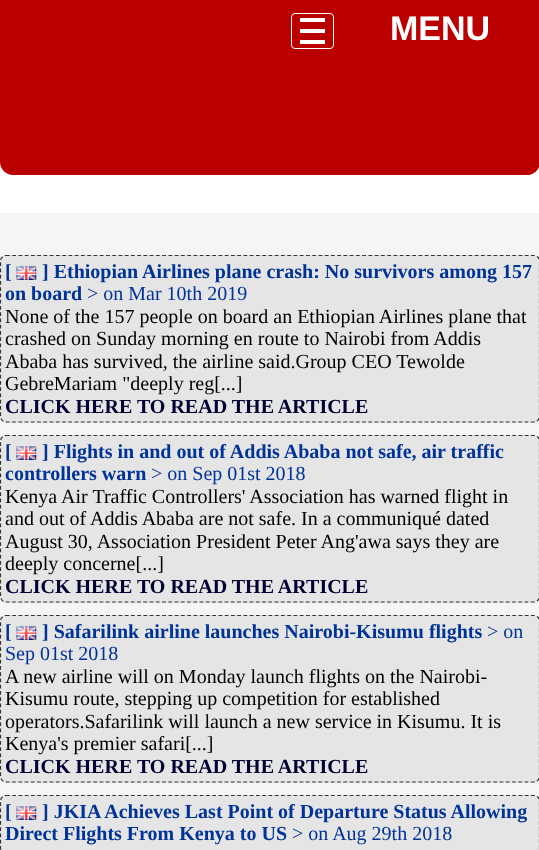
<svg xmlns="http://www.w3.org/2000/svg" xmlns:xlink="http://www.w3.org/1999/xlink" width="539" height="850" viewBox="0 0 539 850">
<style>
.cls-1{font:bold 34px Liberation Sans;fill:#ffffff}
.cls-2{font:bold 20px Liberation Serif;fill:#003399}
.cls-3{font:20px Liberation Serif;fill:#003399}
.cls-4{font:20px Liberation Serif;fill:#000000}
.cls-5{font:bold 20px Liberation Serif;fill:#000033}
</style>
<rect width="100%" height="100%" fill="#ffffff"/>
<rect fill="#bb0000" x="0" y="0" width="539" height="63"/>
<rect fill="none" stroke="#ffffff" x="291.5" y="13.5" width="42" height="35" rx="3.5"/>
<rect fill="#ffffff" x="300" y="18" width="25" height="4"/>
<rect fill="#ffffff" x="300" y="29" width="25" height="4"/>
<rect fill="#ffffff" x="300" y="40" width="25" height="4"/>
<path fill="#bb0000" d="M0 63H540V162C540 169 534 175 527 175H13C6 175 0 169 0 162Z"/>
<rect fill="#f5f5f5" x="0" y="213" width="539" height="588"/>
<rect fill="#e5e5e5" x="0" y="255" width="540" height="168" rx="6"/>
<path fill="none" stroke="#333333" stroke-width="1.2" stroke-dasharray="3.75 2.5" d="M6 255.5H534C537 255.5 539.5 258 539.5 261V416C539.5 419.5 537 422 534 422H6C3 422 .5 419.5 .5 416V261C.5 258 3 255.5 6 255.5Z"/>
<image xlink:href="image0.png" x="16" y="266" width="21" height="14"/>
<rect fill="#e5e5e5" x="0" y="435" width="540" height="168" rx="6"/>
<path fill="none" stroke="#333333" stroke-width="1.2" stroke-dasharray="3.75 2.5" d="M6 435.5H534C537 435.5 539.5 438 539.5 441V596C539.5 599.5 537 602 534 602H6C3 602 .5 599.5 .5 596V441C.5 438 3 435.5 6 435.5Z"/>
<image xlink:href="image0.png" x="16" y="446" width="21" height="14"/>
<rect fill="#e5e5e5" x="0" y="615" width="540" height="168" rx="6"/>
<path fill="none" stroke="#333333" stroke-width="1.2" stroke-dasharray="3.75 2.5" d="M6 615.5H534C537 615.5 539.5 618 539.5 621V776C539.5 779.5 537 782 534 782H6C3 782 .5 779.5 .5 776V621C.5 618 3 615.5 6 615.5Z"/>
<image xlink:href="image0.png" x="16" y="626" width="21" height="14"/>
<rect fill="#e5e5e5" x="0" y="795" width="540" height="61" rx="6"/>
<path fill="none" stroke="#333333" stroke-width="1.2" stroke-dasharray="3.75 2.5" d="M6 795.5H534C537 795.5 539.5 798 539.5 801V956C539.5 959.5 537 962 534 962H6C3 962 .5 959.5 .5 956V801C.5 798 3 795.5 6 795.5Z"/>
<image xlink:href="image0.png" x="16" y="806" width="21" height="14"/>
<text class="cls-1" x="390" y="40">MENU</text>
<text class="cls-2" x="5" y="278">[</text>
<text class="cls-2" x="42" y="278">] Ethiopian Airlines plane crash: No survivors among 157</text>
<text class="cls-2" x="5" y="300">on board</text>
<text class="cls-3" x="87" y="300">&gt; on Mar 10th 2019</text>
<text class="cls-4"><tspan x="5" y="323">None of the 157 people on board an Ethiopian Airlines plane that</tspan><tspan x="5" y="345">crashed on Sunday morning en route to Nairobi from Addis</tspan><tspan x="5" y="368">Ababa has survived, the airline said.Group CEO Tewolde</tspan><tspan x="5" y="390">GebreMariam "deeply reg[...]</tspan></text>
<text class="cls-5" x="5" y="413">CLICK HERE TO READ THE ARTICLE</text>
<text class="cls-2" x="5" y="458">[</text>
<text class="cls-2" x="42" y="458">] Flights in and out of Addis Ababa not safe, air traffic</text>
<text class="cls-2" x="5" y="480">controllers warn</text>
<text class="cls-3" x="151" y="480">&gt; on Sep 01st 2018</text>
<text class="cls-4"><tspan x="5" y="503">Kenya Air Traffic Controllers' Association has warned flight in</tspan><tspan x="5" y="525">and out of Addis Ababa are not safe. In a communiqué dated</tspan><tspan x="5" y="548">August 30, Association President Peter Ang'awa says they are</tspan><tspan x="5" y="570">deeply concerne[...]</tspan></text>
<text class="cls-5" x="5" y="593">CLICK HERE TO READ THE ARTICLE</text>
<text class="cls-2" x="5" y="638">[</text>
<text class="cls-2" x="42" y="638">] Safarilink airline launches Nairobi-Kisumu flights</text>
<text class="cls-3" x="487" y="638">&gt; on</text>
<text class="cls-3" x="5" y="660">Sep 01st 2018</text>
<text class="cls-4"><tspan x="5" y="683">A new airline will on Monday launch flights on the Nairobi-</tspan><tspan x="5" y="705">Kisumu route, stepping up competition for established</tspan><tspan x="5" y="728">operators.Safarilink will launch a new service in Kisumu. It is</tspan><tspan x="5" y="750">Kenya's premier safari[...]</tspan></text>
<text class="cls-5" x="5" y="773">CLICK HERE TO READ THE ARTICLE</text>
<text class="cls-2" x="5" y="818">[</text>
<text class="cls-2" x="42" y="818">] JKIA Achieves Last Point of Departure Status Allowing</text>
<text class="cls-2" x="5" y="840">Direct Flights From Kenya to US</text>
<text class="cls-3" x="292" y="840">&gt; on Aug 29th 2018</text>
</svg>
